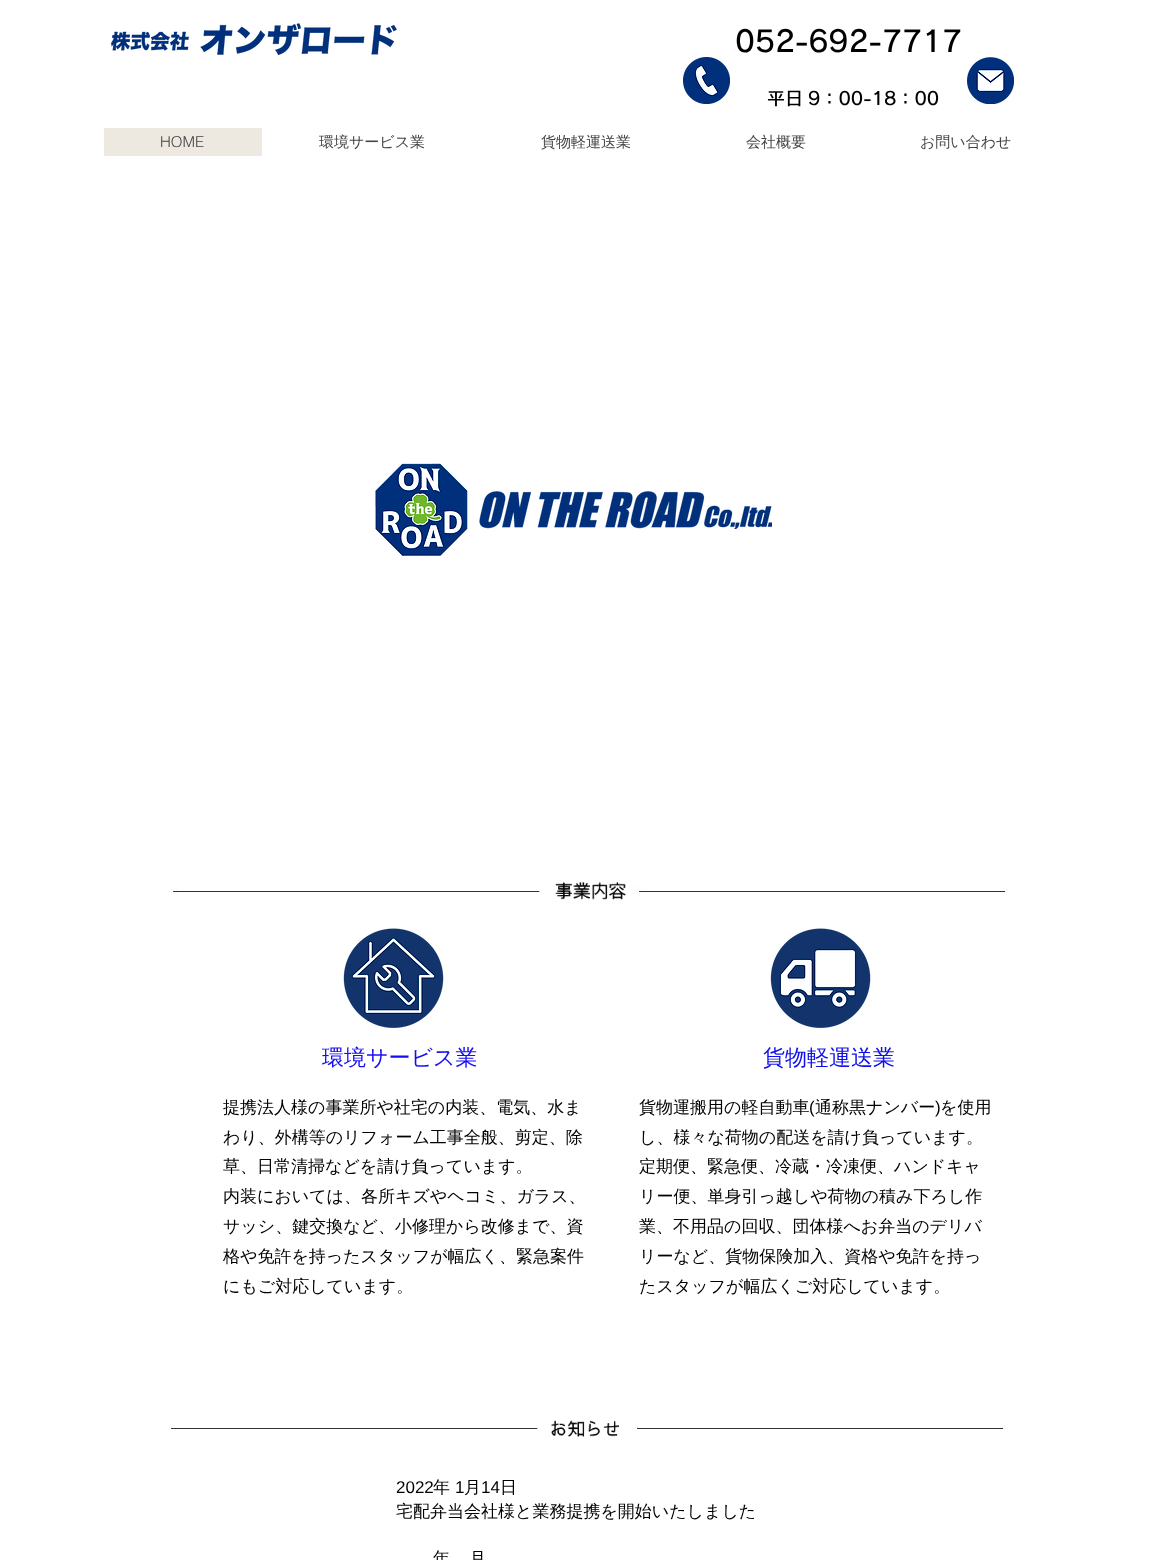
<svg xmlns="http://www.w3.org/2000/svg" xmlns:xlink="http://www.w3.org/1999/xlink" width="1173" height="1560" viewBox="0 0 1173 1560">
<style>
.cls-1{font:600 29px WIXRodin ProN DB;fill:#000000}
.cls-2{font:600 18px WIXRodin ProN DB;fill:#000000}
.cls-3{font:300 15px helvetica;fill:#444444}
.cls-4{font:500 15px WenQuanYi Zen Hei;fill:#444444}
.cls-5{font:500 22px WenQuanYi Zen Hei;fill:#170df2}
.cls-6{font:500 22px WenQuanYi Zen Hei;fill:#1010ea}
.cls-7{font:500 17px WenQuanYi Zen Hei;fill:#000000}
.cls-8{font:17px Liberation Sans;fill:#000000}
</style>
<rect width="100%" height="100%" fill="#ffffff"/>
<image xlink:href="image0.png" x="110" y="23" width="287" height="33"/>
<image xlink:href="image1.png" x="683" y="57" width="47" height="47"/>
<image xlink:href="image2.png" x="967" y="57" width="47" height="47"/>
<rect fill="#ede9e1" x="104" y="128" width="158" height="28"/>
<image xlink:href="image3.png" x="375" y="463" width="93" height="93"/>
<image xlink:href="image4.png" x="479" y="491" width="293" height="38"/>
<image xlink:href="image5.png" x="171" y="882" width="838" height="18"/>
<image xlink:href="image6.png" x="343" y="928" width="101" height="101"/>
<image xlink:href="image7.png" x="770" y="928" width="101" height="101"/>
<image xlink:href="image8.png" x="169" y="1420" width="838" height="17"/>
<text class="cls-1" x="735" y="52">052-692-7717</text>
<text class="cls-2" x="767" y="105">平日</text>
<text class="cls-2" x="808" y="105">9：00-18：00</text>
<text class="cls-3" x="160" y="147">HOME</text>
<text class="cls-4" x="319" y="147">環境サービス業</text>
<text class="cls-4" x="541" y="147">貨物軽運送業</text>
<text class="cls-4" x="746" y="147">会社概要</text>
<text class="cls-4" x="920" y="147">お問い合わせ</text>
<text class="cls-5" x="322" y="1065">環境サービス業</text>
<text class="cls-6" x="763" y="1065">貨物軽運送業</text>
<text class="cls-7"><tspan x="223" y="1113">提携法人様の事業所や社宅の内装、電気、水ま</tspan><tspan x="223" y="1143">わり、外構等のリフォーム工事全般、剪定、除</tspan><tspan x="223" y="1172">草、日常清掃などを請け負っています。</tspan><tspan x="223" y="1202">内装においては、各所キズやヘコミ、ガラス、</tspan><tspan x="223" y="1232">サッシ、鍵交換など、小修理から改修まで、資</tspan><tspan x="223" y="1262">格や免許を持ったスタッフが幅広く、緊急案件</tspan><tspan x="223" y="1292">にもご対応しています。</tspan></text>
<text class="cls-7" x="639" y="1113">貨物運搬用の軽自動車</text>
<text class="cls-8" x="809" y="1113">(</text>
<text class="cls-7" x="815" y="1113">通称黒ナンバー</text>
<text class="cls-8" x="935" y="1113">)</text>
<text class="cls-7" x="940" y="1113">を使用</text>
<text class="cls-7"><tspan x="639" y="1143">し、様々な荷物の配送を請け負っています。</tspan><tspan x="639" y="1172">定期便、緊急便、冷蔵・冷凍便、ハンドキャ</tspan><tspan x="639" y="1202">リー便、単身引っ越しや荷物の積み下ろし作</tspan><tspan x="639" y="1232">業、不用品の回収、団体様へお弁当のデリバ</tspan><tspan x="639" y="1262">リーなど、貨物保険加入、資格や免許を持っ</tspan><tspan x="639" y="1292">たスタッフが幅広くご対応しています。</tspan></text>
<text class="cls-8" x="396" y="1493">2022</text>
<text class="cls-7" x="433" y="1493">年</text>
<text class="cls-8" x="455" y="1493">1</text>
<text class="cls-7" x="464" y="1493">月</text>
<text class="cls-8" x="481" y="1493">14</text>
<text class="cls-7" x="500" y="1493">日</text>
<text class="cls-7" x="396" y="1517">宅配弁当会社様と業務提携を開始いたしました</text>
<text class="cls-7" x="433" y="1564">年</text>
<text class="cls-7" x="469" y="1564">月</text>
</svg>
